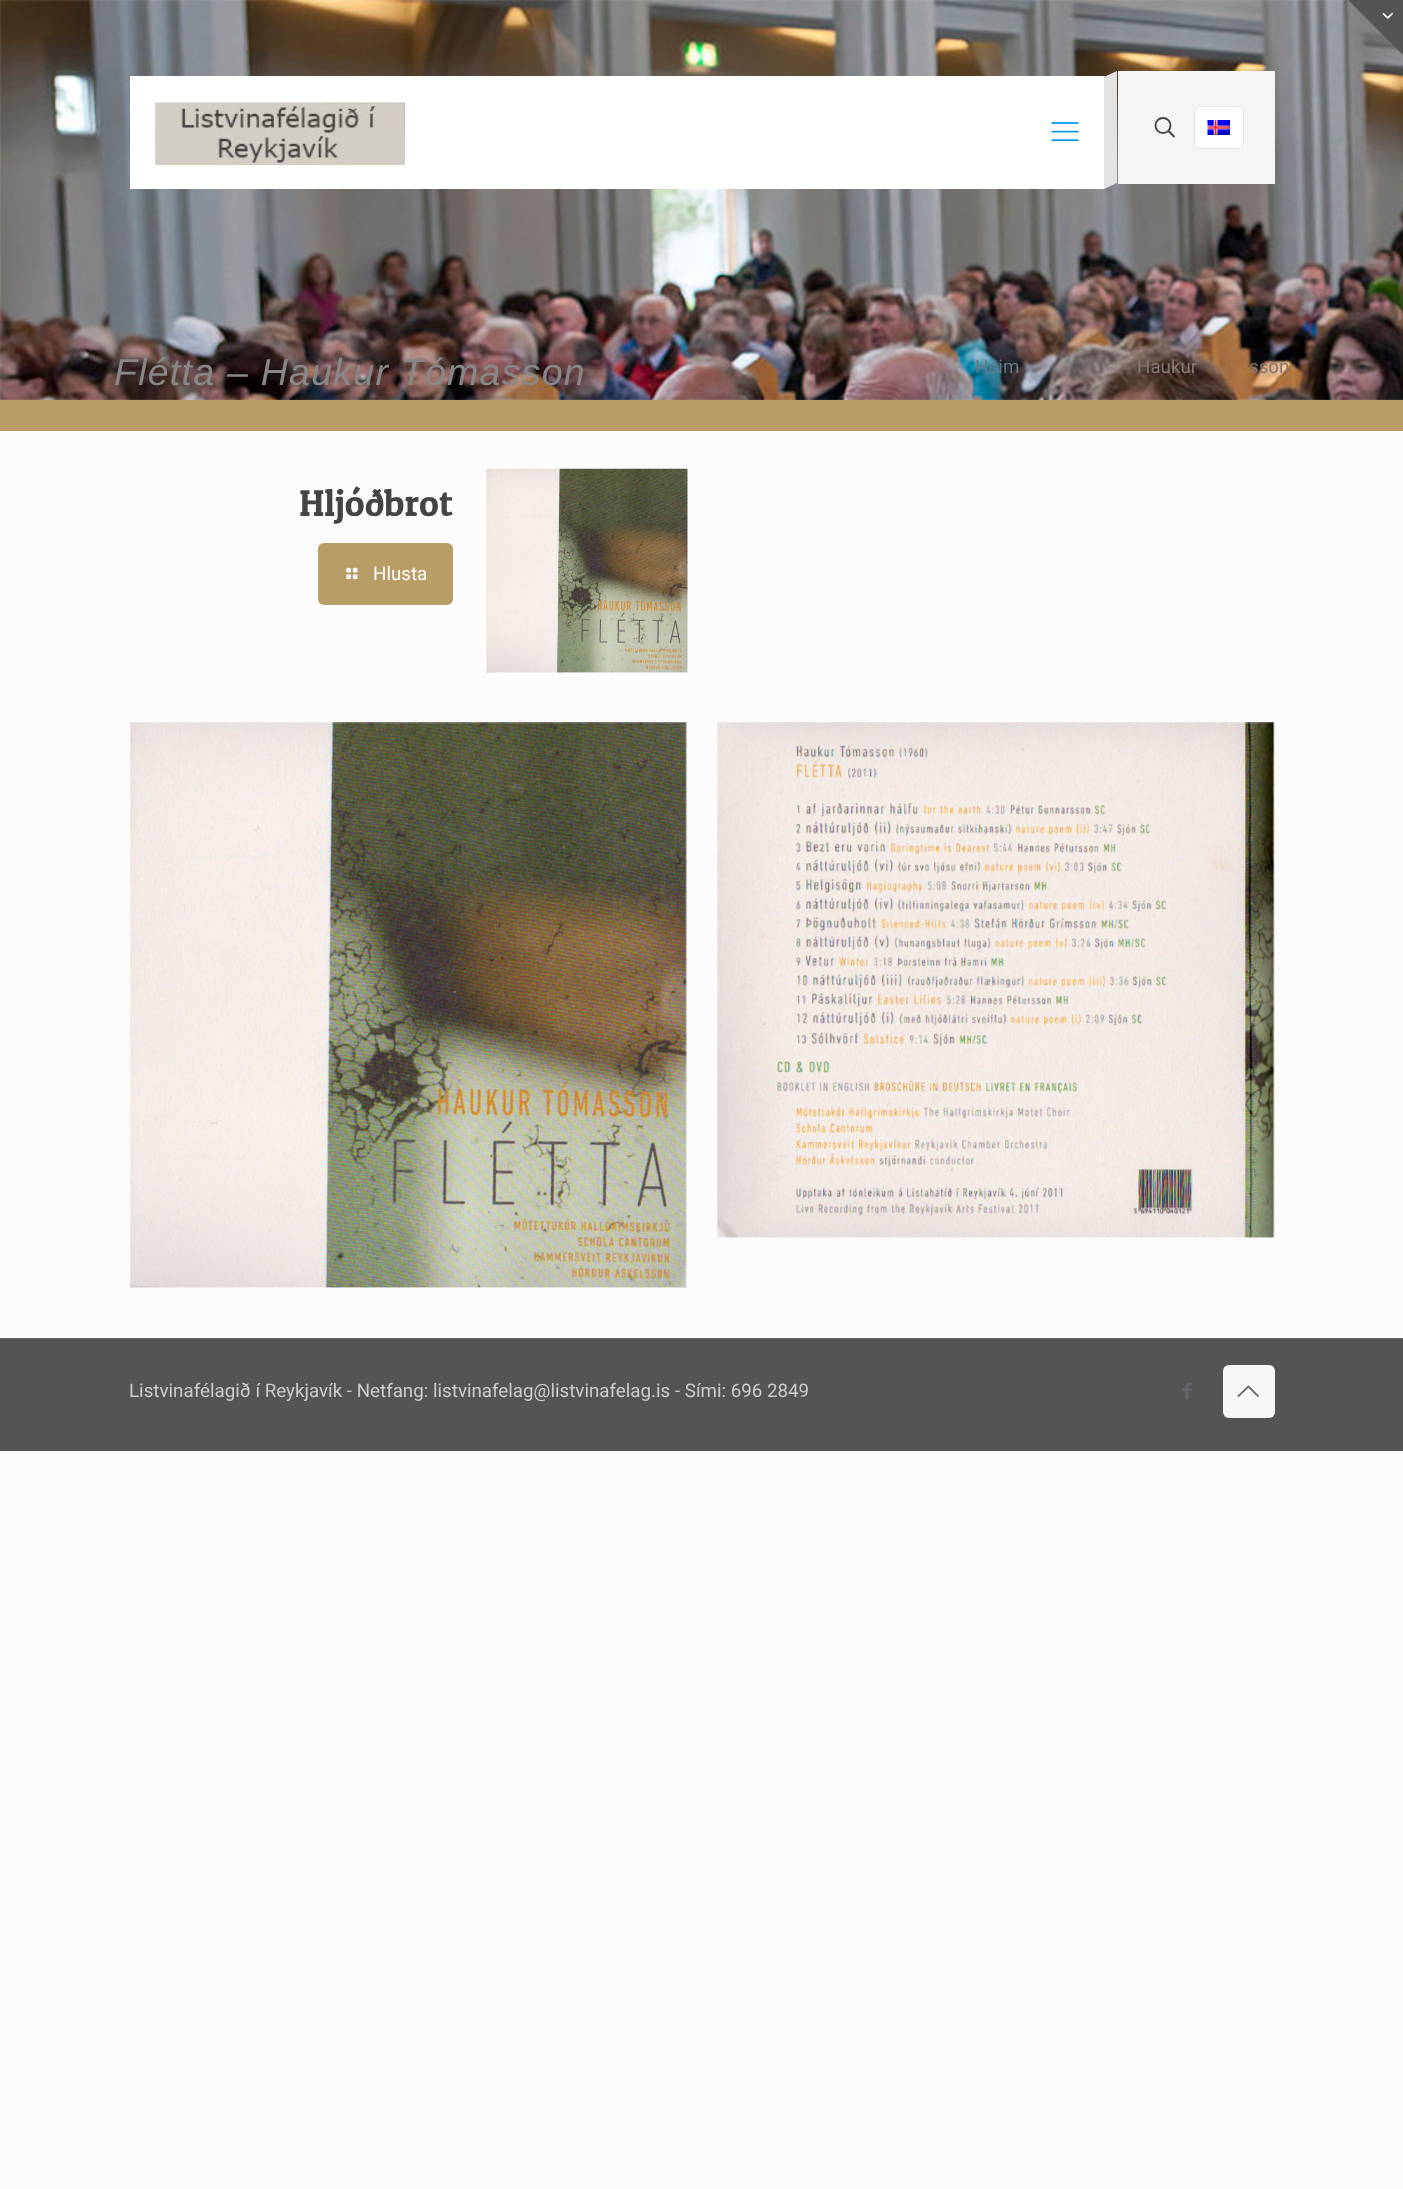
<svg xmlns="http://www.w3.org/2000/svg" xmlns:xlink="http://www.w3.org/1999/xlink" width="1403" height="2189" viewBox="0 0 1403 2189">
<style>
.cls-1{font:italic 37.5px Liberation Sans;letter-spacing:1.25px;fill:#888888}
.cls-2{font:18.75px Roboto;fill:#65777f}
.cls-3{font:18.75px Roboto;fill:#847972}
.cls-4{font:37.5px Patua One;fill:#444444}
.cls-5{font:18.75px Roboto;fill:#ffffff}
.cls-6{font:18.75px Roboto;fill:#cccccc}
</style>
<rect width="100%" height="100%" fill="#fcfcfc"/>
<image xlink:href="image1.png" x="0" y="0" width="1403" height="400"/>
<path fill="#545454" d="M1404 0V56L1348 0Z"/>
<image xlink:href="image0.png" x="1382" y="12" width="11" height="7"/>
<rect fill="#b99d66" x="0" y="400" width="1403" height="31"/>
<rect fill="#ffffff" x="130" y="76" width="975" height="113"/>
<image xlink:href="image2.png" x="155" y="102" width="250" height="64"/>
<image xlink:href="image3.png" x="1051" y="122" width="28" height="20"/>
<rect fill="#f5f5f5" x="1118" y="71" width="157" height="113"/>
<path fill="#e3e3e3" d="M1104 77L1117 71V183L1104 189Z"/>
<circle fill="none" stroke="#444444" stroke-width="1.9" cx="1163" cy="125.5" r="7.5"/>
<path fill="none" stroke="#444444" stroke-width="1.9" d="M1168 130.5L1174.5 137"/>
<rect fill="#ffffff" stroke="#e5e5e5" x="1194.5" y="106.5" width="49" height="42" rx="5.5"/>
<image xlink:href="image4.png" x="1207" y="120" width="23" height="15"/>
<image xlink:href="image5.png" x="1042" y="361" width="7" height="11"/>
<rect fill="#b99d66" x="318" y="543" width="135" height="62" rx="6"/>
<image xlink:href="image6.png" x="346" y="567" width="12" height="13"/>
<image xlink:href="image7.png" x="486" y="468" width="202" height="205"/>
<image xlink:href="image8.png" x="130" y="722" width="557" height="566"/>
<image xlink:href="image9.png" x="717" y="722" width="558" height="516"/>
<rect fill="#545454" x="0" y="1339" width="1403" height="112"/>
<rect fill="#656565" x="0" y="1338" width="1403" height="1"/>
<image xlink:href="image10.png" x="1182" y="1382" width="10" height="18"/>
<rect fill="#f7f7f7" x="1223" y="1365" width="52" height="53" rx="6"/>
<image xlink:href="image11.png" x="1237" y="1385" width="22" height="12"/>
<text class="cls-1" x="114" y="385">Flétta – Haukur Tómasson</text>
<text class="cls-2" x="975" y="373">Heim</text>
<text class="cls-3" x="1137" y="373">Haukur</text>
<text class="cls-3" x="1249" y="373">sson</text>
<text class="cls-4" x="299" y="516">Hljóðbrot</text>
<text class="cls-5" x="373" y="580">Hlusta</text>
<text class="cls-6" x="129" y="1397">Listvinafélagið í Reykjavík - Netfang: listvinafelag@listvinafelag.is - Sími: 696 2849</text>
</svg>
